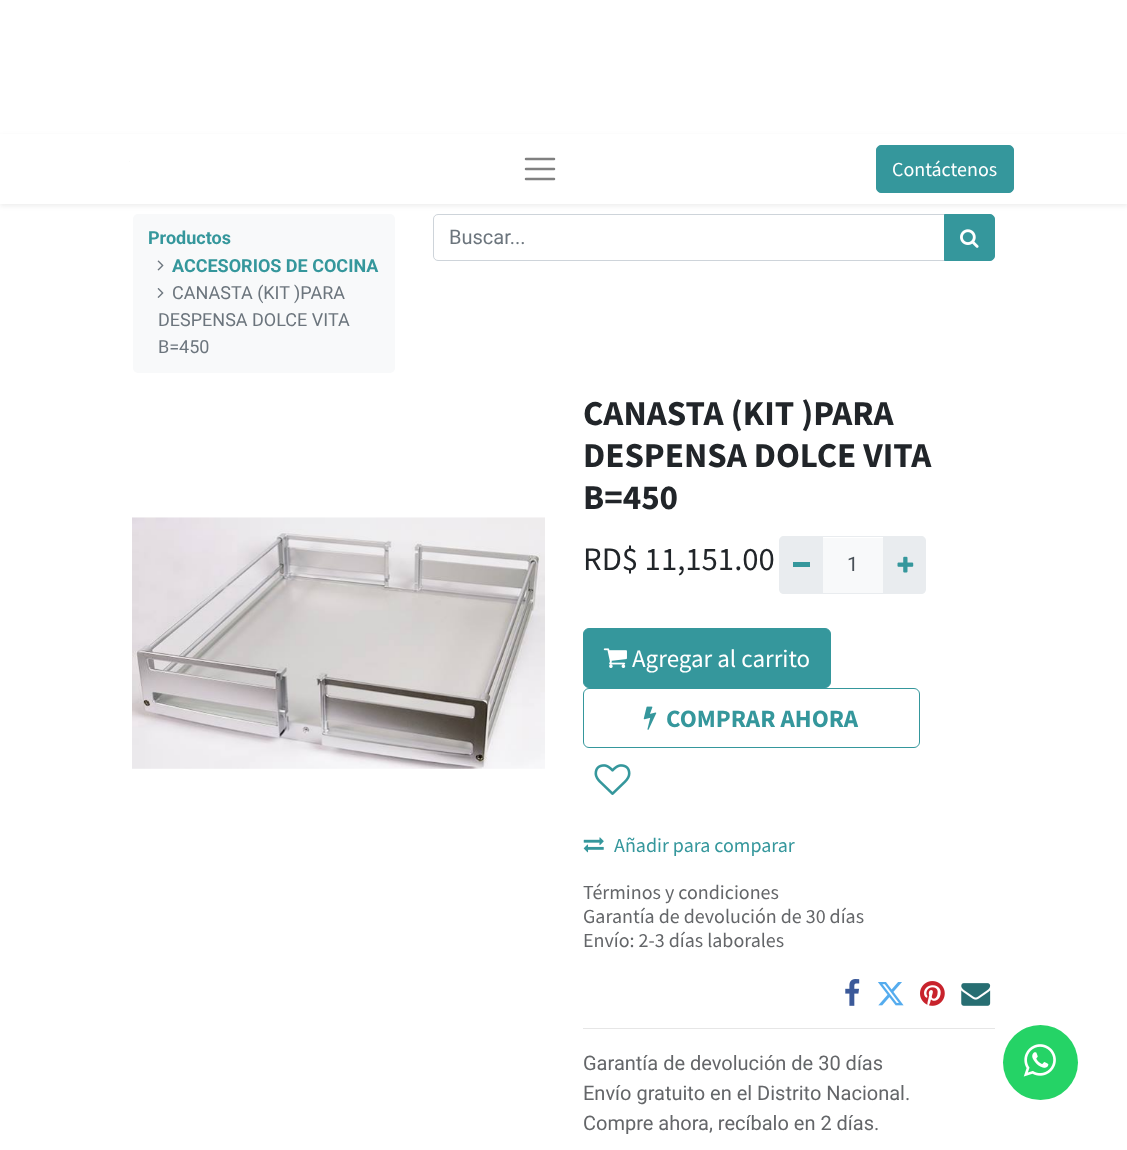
<svg xmlns="http://www.w3.org/2000/svg" xmlns:xlink="http://www.w3.org/1999/xlink" width="1127" height="1150" viewBox="0 0 1127 1150">
<style>
.cls-1{font:20px Source Sans Pro;fill:#ffffff}
.cls-2{font:bold 18px Roboto;fill:#35979c}
.cls-3{font:18px Roboto;fill:#6c757d}
.cls-4{font:20px Roboto;fill:#6c757d}
.cls-5{font:bold 35px Source Sans Pro;fill:#212529}
.cls-6{font:32.75px Source Sans Pro;fill:#212529}
.cls-7{font:20px Roboto;fill:#495057}
.cls-8{font:25px Source Sans Pro;fill:#ffffff}
.cls-9{font:bold 25px Source Sans Pro;fill:#35979c}
.cls-10{font:20px Source Sans Pro;fill:#35979c}
.cls-11{font:20px Source Sans Pro;fill:#646669}
.cls-12{font:20px Roboto;fill:#646669}
</style>
<rect width="100%" height="100%" fill="#ffffff"/>
<rect fill="#f8f9fa" x="133" y="214" width="262" height="159" rx="5"/>
<path fill="none" stroke="#ced4da" d="M438 214.5H944.5V260.5H438C435.5 260.5 433.5 258.5 433.5 256V219C433.5 216.5 435.5 214.5 438 214.5Z"/>
<path fill="#35979c" stroke="#35979c" d="M944.5 214.5H990C992.5 214.5 994.5 216.5 994.5 219V256C994.5 258.5 992.5 260.5 990 260.5H944.5Z"/>
<rect fill="#000000" fill-opacity="0.07" filter="blur(2.5px)" x="0" y="136" width="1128" height="70"/>
<rect fill="#ffffff" x="0" y="134" width="1127" height="70"/>
<rect fill="#fafafa" x="129" y="161" width="1" height="1"/>
<path fill="none" stroke="#808080" stroke-width="2.5" stroke-linecap="round" d="M526 159H554M526 169H554M526 179H554"/>
<rect fill="#35979c" stroke="#35979c" x="876.5" y="145.5" width="137" height="47" rx="4.5"/>
<image xlink:href="image0.png" x="157" y="260" width="7" height="11"/>
<image xlink:href="image1.png" x="157" y="288" width="7" height="10"/>
<image xlink:href="image2.png" x="960" y="229" width="19" height="19"/>
<image xlink:href="image3.png" x="132" y="517" width="413" height="252"/>
<rect fill="#f8f9fa" x="823" y="538" width="60" height="55"/>
<rect fill="none" stroke="#e9ecef" x="821.5" y="536.5" width="62" height="57"/>
<path fill="#e9ecef" d="M784 536H823V594H784C781 594 779 592 779 589V541C779 538 781 536 784 536Z"/>
<rect fill="#35979c" x="793" y="562" width="17" height="5"/>
<path fill="#e9ecef" d="M883 536H921C924 536 926 538 926 541V589C926 592 924 594 921 594H883Z"/>
<image xlink:href="image4.png" x="897" y="556" width="17" height="17"/>
<rect fill="#35979c" stroke="#35979c" x="583.5" y="628.5" width="247" height="59" rx="5.5"/>
<image xlink:href="image5.png" x="603" y="648" width="24" height="20"/>
<rect fill="none" stroke="#35979c" x="583.5" y="688.5" width="336" height="59" rx="5.5"/>
<image xlink:href="image6.png" x="643" y="706" width="14" height="24"/>
<image xlink:href="image7.png" x="594" y="764" width="37" height="31"/>
<image xlink:href="image8.png" x="583" y="837" width="21" height="16"/>
<image xlink:href="image9.png" x="845" y="979" width="15" height="27"/>
<image xlink:href="image10.png" x="878" y="982" width="26" height="24"/>
<image xlink:href="image11.png" x="920" y="981" width="25" height="25"/>
<image xlink:href="image12.png" x="961" y="983" width="30" height="23"/>
<rect fill="#e6e6e6" x="583" y="1028" width="412" height="1"/>
<circle fill="#25d366" cx="1040.5" cy="1062.5" r="37.5"/>
<image xlink:href="image13.png" x="1023" y="1044" width="33" height="33"/>
<text class="cls-1" x="892" y="176">Contáctenos</text>
<text class="cls-2" x="148" y="244">Productos</text>
<text class="cls-2" x="172" y="272">ACCESORIOS DE COCINA</text>
<text class="cls-3" x="172" y="299">CANASTA (KIT )PARA</text>
<text class="cls-3"><tspan x="158" y="326">DESPENSA DOLCE VITA</tspan><tspan x="158" y="353">B=450</tspan></text>
<text class="cls-4" x="449" y="244">Buscar...</text>
<text class="cls-5"><tspan x="583" y="425">CANASTA (KIT )PARA</tspan><tspan x="583" y="467">DESPENSA DOLCE VITA</tspan><tspan x="583" y="509">B=450</tspan></text>
<text class="cls-6" x="583" y="570">RD$ 11,151.00</text>
<text class="cls-7" x="847" y="571">1</text>
<text class="cls-8" x="632" y="667">Agregar al carrito</text>
<text class="cls-9" x="666" y="727">COMPRAR AHORA</text>
<text class="cls-10" x="614" y="852">Añadir para comparar</text>
<text class="cls-11"><tspan x="583" y="899">Términos y condiciones</tspan><tspan x="583" y="923">Garantía de devolución de 30 días</tspan><tspan x="583" y="947">Envío: 2-3 días laborales</tspan></text>
<text class="cls-12"><tspan x="583" y="1070">Garantía de devolución de 30 días</tspan><tspan x="583" y="1100">Envío gratuito en el Distrito Nacional.</tspan><tspan x="583" y="1130">Compre ahora, recíbalo en 2 días.</tspan></text>
</svg>
